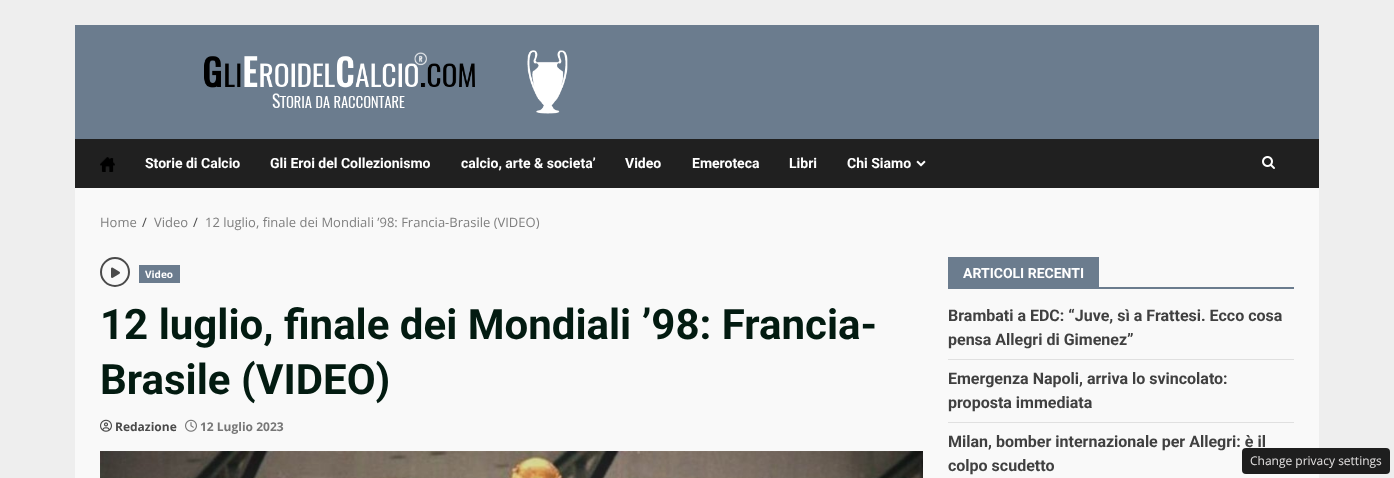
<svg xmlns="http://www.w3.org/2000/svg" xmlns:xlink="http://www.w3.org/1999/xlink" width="1394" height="478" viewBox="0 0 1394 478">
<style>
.cls-1{font:bold 14px Roboto;fill:#ffffff}
.cls-2{font:13px Open Sans;fill:#7f7f7f}
.cls-3{font:13px Open Sans;fill:#4a4a4a}
.cls-4{font:bold 10px Open Sans;fill:#ffffff}
.cls-5{font:bold 42px Roboto;fill:#031b11}
.cls-6{font:bold 12px Open Sans;fill:#4a4a4a}
.cls-7{font:bold 12px Open Sans;fill:#767676}
.cls-8{font:bold 16px Roboto;fill:#404040}
.cls-9{font:12px Open Sans;fill:#e3e1e1}
</style>
<rect width="100%" height="100%" fill="#eeeeee"/>
<rect fill="#f9f9f9" x="75" y="188" width="1244" height="290"/>
<rect fill="#6b7c8e" x="75" y="25" width="1244" height="114"/>
<image xlink:href="image0.png" x="204" y="50" width="364" height="64"/>
<rect fill="#202020" x="75" y="139" width="1244" height="49"/>
<image xlink:href="image1.png" x="100" y="157" width="15" height="15"/>
<image xlink:href="image2.png" x="916" y="160" width="10" height="7"/>
<image xlink:href="image3.png" x="1262" y="156" width="13" height="13"/>
<circle fill="none" stroke="#4a4a4a" stroke-width="2" cx="115" cy="272" r="14"/>
<image xlink:href="image4.png" x="111" y="267" width="9" height="11"/>
<rect fill="#6b7c8e" x="139" y="265" width="41" height="18"/>
<image xlink:href="image5.png" x="100" y="419" width="12" height="13"/>
<image xlink:href="image6.png" x="185" y="419" width="12" height="13"/>
<image xlink:href="image7.png" x="100" y="451" width="823" height="27"/>
<rect fill="#6b7c8e" x="948" y="287" width="346" height="2"/>
<rect fill="#6b7c8e" x="948" y="257" width="151" height="30"/>
<rect fill="#e0e0e0" x="948" y="359" width="346" height="1"/>
<rect fill="#e0e0e0" x="948" y="422" width="346" height="1"/>
<text class="cls-1" x="145" y="168">Storie di Calcio</text>
<text class="cls-1" x="270" y="168">Gli Eroi del Collezionismo</text>
<text class="cls-1" x="461" y="168">calcio, arte &amp; societa’</text>
<text class="cls-1" x="625" y="168">Video</text>
<text class="cls-1" x="692" y="168">Emeroteca</text>
<text class="cls-1" x="789" y="168">Libri</text>
<text class="cls-1" x="847" y="168">Chi Siamo</text>
<text class="cls-2" x="100" y="227">Home</text>
<text class="cls-3" x="142" y="227">/</text>
<text class="cls-2" x="154" y="227">Video</text>
<text class="cls-3" x="193" y="227">/</text>
<text class="cls-2" x="205" y="227">12 luglio, finale dei Mondiali ’98: Francia-Brasile (VIDEO)</text>
<text class="cls-4" x="145" y="278">Video</text>
<text class="cls-5"><tspan x="100" y="339">12 luglio, finale dei Mondiali ’98: Francia-</tspan><tspan x="100" y="394">Brasile (VIDEO)</tspan></text>
<text class="cls-6" x="115" y="431">Redazione</text>
<text class="cls-7" x="200" y="431">12 Luglio 2023</text>
<text class="cls-1" x="963" y="278">ARTICOLI RECENTI</text>
<text class="cls-8"><tspan x="948" y="321">Brambati a EDC: “Juve, sì a Frattesi. Ecco cosa</tspan><tspan x="948" y="345">pensa Allegri di Gimenez”</tspan></text>
<text class="cls-8"><tspan x="948" y="384">Emergenza Napoli, arriva lo svincolato:</tspan><tspan x="948" y="408">proposta immediata</tspan></text>
<text class="cls-8"><tspan x="948" y="447">Milan, bomber internazionale per Allegri: è il</tspan><tspan x="948" y="471">colpo scudetto</tspan></text>
<rect fill="#1e1e1e" x="1242" y="448" width="148" height="26" rx="4"/>
<text class="cls-9" x="1250" y="465">Change privacy settings</text>
</svg>
